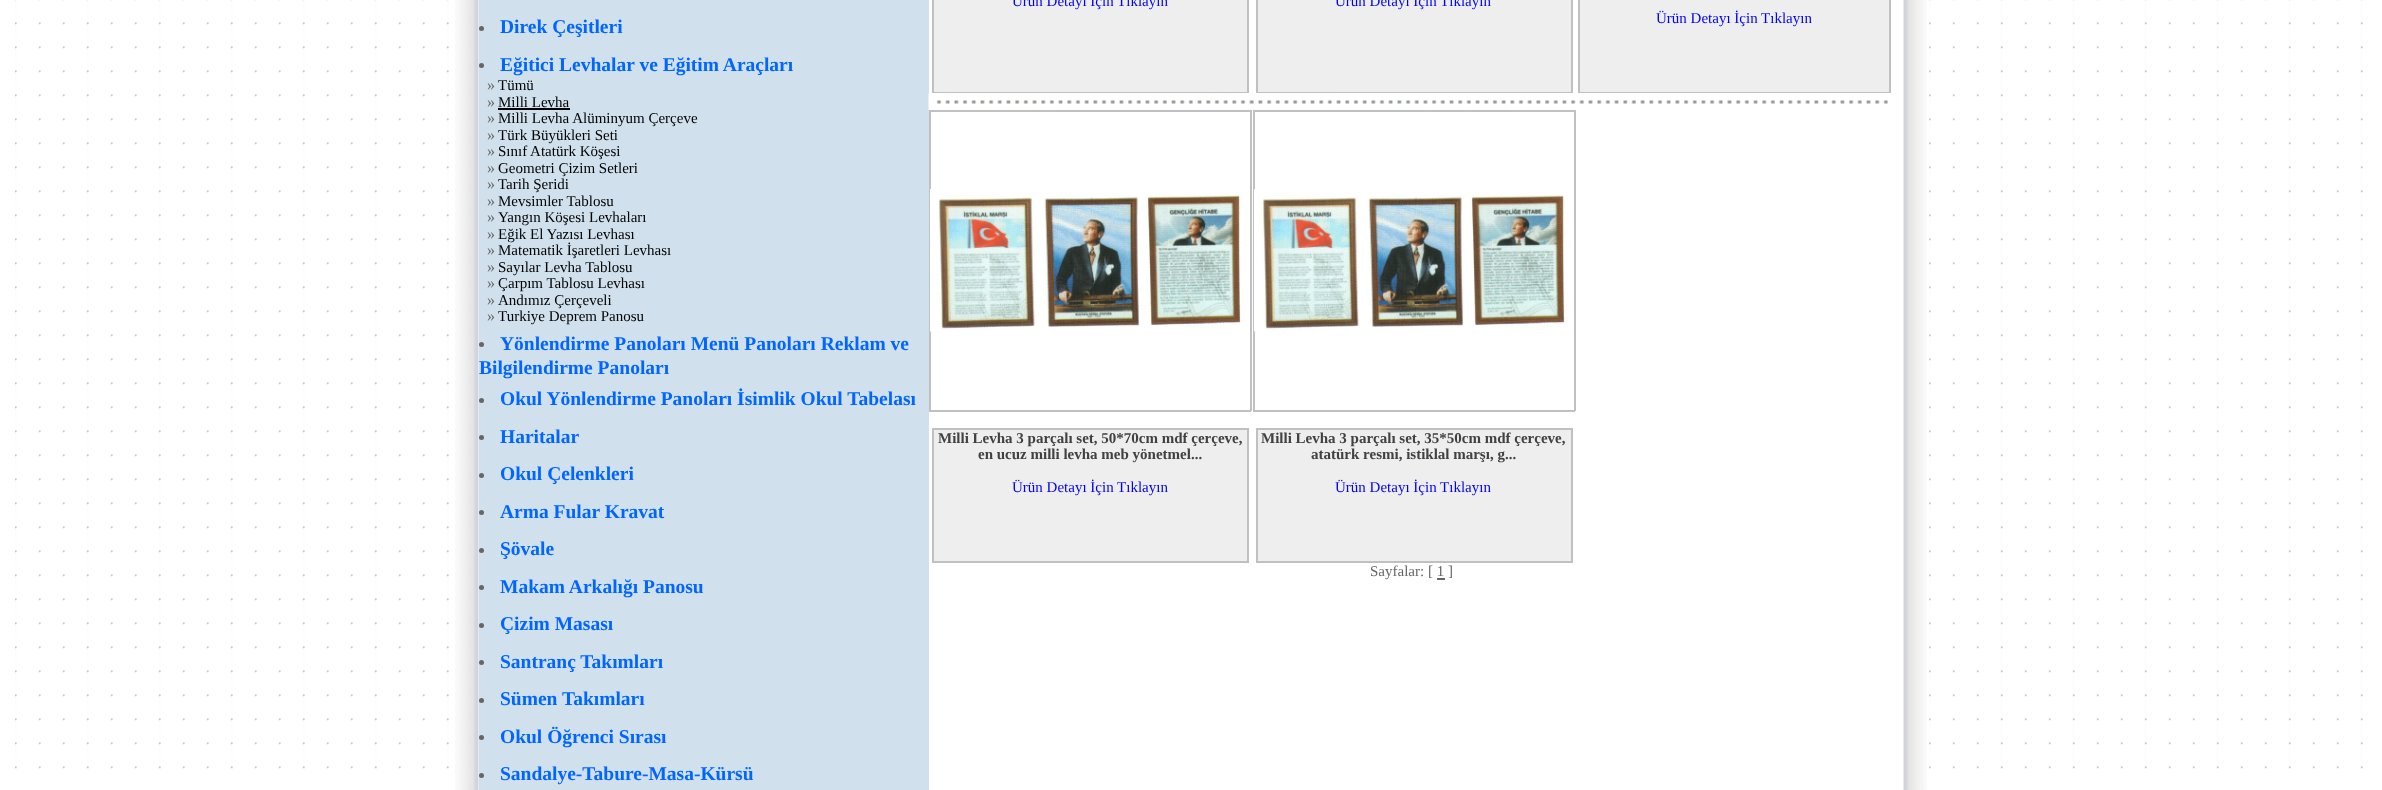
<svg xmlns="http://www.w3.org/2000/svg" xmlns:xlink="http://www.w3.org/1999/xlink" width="2382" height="790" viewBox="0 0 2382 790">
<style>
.cls-1{font:bold 19.5px Liberation Serif;fill:#0066ff}
.cls-2{font:16px Liberation Serif;fill:#666666}
.cls-3{font:15px Liberation Serif;fill:#000000}
.cls-4{font:15px Liberation Serif;fill:#0000ff}
.cls-5{font:bold 15px Liberation Serif;fill:#414141}
.cls-6{font:15px Liberation Serif;fill:#666666}
</style>
<rect width="100%" height="100%" fill="#ffffff"/>
<image xlink:href="image0.png" x="15" y="0" width="434" height="769"/>
<image xlink:href="image1.png" x="455" y="0" width="24" height="790"/>
<rect fill="#d0e0ed" x="479" y="0" width="450" height="790"/>
<circle fill="#666666" cx="481.5" cy="28.5" r="2.5"/>
<circle fill="#666666" cx="481.5" cy="65.5" r="2.5"/>
<rect fill="#000000" x="498" y="108" width="72" height="2"/>
<circle fill="#666666" cx="481.5" cy="344.5" r="2.5"/>
<circle fill="#666666" cx="481.5" cy="400.5" r="2.5"/>
<circle fill="#666666" cx="481.5" cy="437.5" r="2.5"/>
<circle fill="#666666" cx="481.5" cy="475.5" r="2.5"/>
<circle fill="#666666" cx="481.5" cy="512.5" r="2.5"/>
<circle fill="#666666" cx="481.5" cy="550.5" r="2.5"/>
<circle fill="#666666" cx="481.5" cy="587.5" r="2.5"/>
<circle fill="#666666" cx="481.5" cy="625.5" r="2.5"/>
<circle fill="#666666" cx="481.5" cy="662.5" r="2.5"/>
<circle fill="#666666" cx="481.5" cy="700.5" r="2.5"/>
<circle fill="#666666" cx="481.5" cy="737.5" r="2.5"/>
<circle fill="#666666" cx="481.5" cy="775.5" r="2.5"/>
<rect fill="#eeeeee" x="934" y="0" width="313" height="92"/>
<rect fill="#c0c0c0" x="1247" y="0" width="2" height="93"/>
<rect fill="#c0c0c0" x="932" y="92" width="316" height="1"/>
<rect fill="#c0c0c0" x="932" y="0" width="2" height="93"/>
<rect fill="#eeeeee" x="1258" y="0" width="313" height="92"/>
<rect fill="#c0c0c0" x="1571" y="0" width="2" height="93"/>
<rect fill="#c0c0c0" x="1256" y="92" width="316" height="1"/>
<rect fill="#c0c0c0" x="1256" y="0" width="2" height="93"/>
<rect fill="#eeeeee" x="1580" y="0" width="309" height="92"/>
<rect fill="#c0c0c0" x="1889" y="0" width="2" height="93"/>
<rect fill="#c0c0c0" x="1578" y="92" width="312" height="1"/>
<rect fill="#c0c0c0" x="1578" y="0" width="2" height="93"/>
<image xlink:href="image2.png" x="928" y="93" width="962" height="17"/>
<rect fill="#c0c0c0" x="929" y="110" width="322" height="2"/>
<rect fill="#c0c0c0" x="1250" y="110" width="2" height="301"/>
<rect fill="#c0c0c0" x="929" y="410" width="322" height="2"/>
<rect fill="#c0c0c0" x="929" y="110" width="2" height="301"/>
<image xlink:href="image3.png" x="930" y="189" width="318" height="143"/>
<rect fill="#eeeeee" x="934" y="430" width="313" height="131"/>
<rect fill="#c0c0c0" x="932" y="428" width="316" height="2"/>
<rect fill="#c0c0c0" x="1247" y="428" width="2" height="135"/>
<rect fill="#c0c0c0" x="932" y="561" width="316" height="2"/>
<rect fill="#c0c0c0" x="932" y="428" width="2" height="135"/>
<rect fill="#c0c0c0" x="1253" y="110" width="322" height="2"/>
<rect fill="#c0c0c0" x="1574" y="110" width="2" height="301"/>
<rect fill="#c0c0c0" x="1253" y="410" width="322" height="2"/>
<rect fill="#c0c0c0" x="1253" y="110" width="2" height="301"/>
<image xlink:href="image3.png" x="1254" y="189" width="318" height="143"/>
<rect fill="#eeeeee" x="1258" y="430" width="313" height="131"/>
<rect fill="#c0c0c0" x="1256" y="428" width="316" height="2"/>
<rect fill="#c0c0c0" x="1571" y="428" width="2" height="135"/>
<rect fill="#c0c0c0" x="1256" y="561" width="316" height="2"/>
<rect fill="#c0c0c0" x="1256" y="428" width="2" height="135"/>
<rect fill="#666666" x="1437" y="578" width="8" height="2"/>
<image xlink:href="image4.png" x="1903" y="0" width="24" height="790"/>
<image xlink:href="image0.png" x="1929" y="0" width="434" height="769"/>
<text class="cls-1"><tspan x="500" y="33">Direk Çeşitleri</tspan><tspan x="500" y="71">Eğitici Levhalar ve Eğitim Araçları</tspan></text>
<text class="cls-2" x="487" y="90">»</text>
<text class="cls-3" x="498" y="90">Tümü</text>
<text class="cls-2" x="487" y="107">»</text>
<text class="cls-3" x="498" y="107">Milli Levha</text>
<text class="cls-2" x="487" y="123">»</text>
<text class="cls-3" x="498" y="123">Milli Levha Alüminyum Çerçeve</text>
<text class="cls-2" x="487" y="140">»</text>
<text class="cls-3" x="498" y="140">Türk Büyükleri Seti</text>
<text class="cls-2" x="487" y="156">»</text>
<text class="cls-3" x="498" y="156">Sınıf Atatürk Köşesi</text>
<text class="cls-2" x="487" y="173">»</text>
<text class="cls-3" x="498" y="173">Geometri Çizim Setleri</text>
<text class="cls-2" x="487" y="189">»</text>
<text class="cls-3" x="498" y="189">Tarih Şeridi</text>
<text class="cls-2" x="487" y="206">»</text>
<text class="cls-3" x="498" y="206">Mevsimler Tablosu</text>
<text class="cls-2" x="487" y="222">»</text>
<text class="cls-3" x="498" y="222">Yangın Köşesi Levhaları</text>
<text class="cls-2" x="487" y="239">»</text>
<text class="cls-3" x="498" y="239">Eğik El Yazısı Levhası</text>
<text class="cls-2" x="487" y="255">»</text>
<text class="cls-3" x="498" y="255">Matematik İşaretleri Levhası</text>
<text class="cls-2" x="487" y="272">»</text>
<text class="cls-3" x="498" y="272">Sayılar Levha Tablosu</text>
<text class="cls-2" x="487" y="288">»</text>
<text class="cls-3" x="498" y="288">Çarpım Tablosu Levhası</text>
<text class="cls-2" x="487" y="305">»</text>
<text class="cls-3" x="498" y="305">Andımız Çerçeveli</text>
<text class="cls-2" x="487" y="321">»</text>
<text class="cls-3" x="498" y="321">Turkiye Deprem Panosu</text>
<text class="cls-1" x="500" y="350">Yönlendirme Panoları Menü Panoları Reklam ve</text>
<text class="cls-1" x="479" y="374">Bilgilendirme Panoları</text>
<text class="cls-1"><tspan x="500" y="405">Okul Yönlendirme Panoları İsimlik Okul Tabelası</tspan><tspan x="500" y="443">Haritalar</tspan><tspan x="500" y="480">Okul Çelenkleri</tspan><tspan x="500" y="518">Arma Fular Kravat</tspan><tspan x="500" y="555">Şövale</tspan><tspan x="500" y="593">Makam Arkalığı Panosu</tspan><tspan x="500" y="630">Çizim Masası</tspan><tspan x="500" y="668">Santranç Takımları</tspan><tspan x="500" y="705">Sümen Takımları</tspan><tspan x="500" y="743">Okul Öğrenci Sırası</tspan><tspan x="500" y="780">Sandalye-Tabure-Masa-Kürsü</tspan></text>
<text class="cls-4" x="1012" y="6">Ürün Detayı İçin Tıklayın</text>
<text class="cls-4" x="1335" y="6">Ürün Detayı İçin Tıklayın</text>
<text class="cls-4" x="1656" y="23">Ürün Detayı İçin Tıklayın</text>
<text class="cls-5" x="938" y="443">Milli Levha 3 parçalı set, 50*70cm mdf çerçeve,</text>
<text class="cls-5" x="978" y="459">en ucuz milli levha meb yönetmel...</text>
<text class="cls-4" x="1012" y="492">Ürün Detayı İçin Tıklayın</text>
<text class="cls-5" x="1261" y="443">Milli Levha 3 parçalı set, 35*50cm mdf çerçeve,</text>
<text class="cls-5" x="1311" y="459">atatürk resmi, istiklal marşı, g...</text>
<text class="cls-4" x="1335" y="492">Ürün Detayı İçin Tıklayın</text>
<text class="cls-6" x="1370" y="576">Sayfalar: [ 1 ]</text>
</svg>
